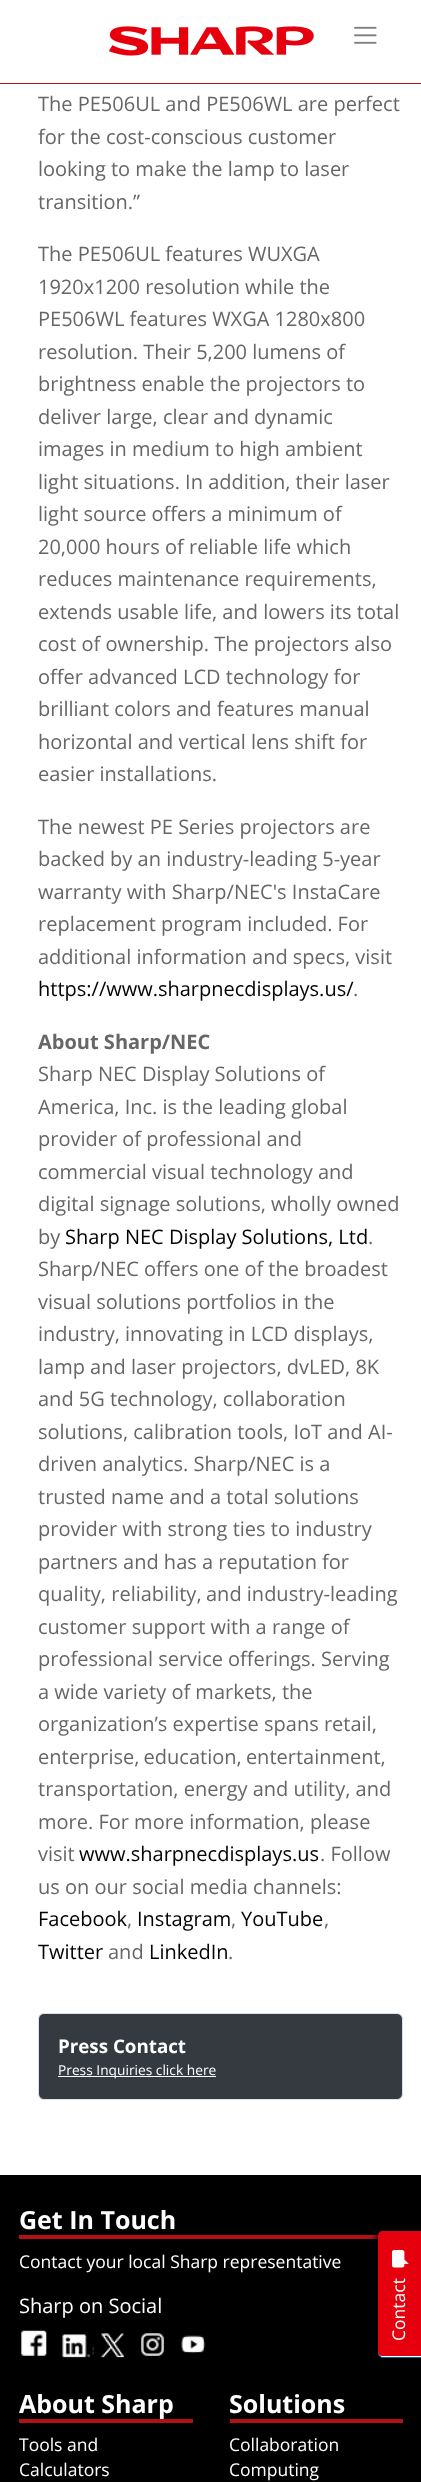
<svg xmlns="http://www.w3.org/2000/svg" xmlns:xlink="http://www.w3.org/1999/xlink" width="421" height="2482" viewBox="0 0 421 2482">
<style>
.cls-1{font:20px Open Sans;fill:#666666}
.cls-2{font:20px Open Sans;fill:#000000}
.cls-3{font:bold 20px Open Sans;fill:#666666}
.cls-4{font:bold 18.75px Open Sans;fill:#ffffff}
.cls-5{font:13.75px Open Sans;fill:#ffffff}
.cls-6{font:bold 25px Open Sans;fill:#ffffff}
.cls-7{font:17.5px Open Sans;fill:#ffffff}
.cls-8{font:20px Open Sans;fill:#ffffff}
</style>
<rect width="100%" height="100%" fill="#ffffff"/>
<rect fill="#b21213" x="0" y="83" width="421" height="1"/>
<image xlink:href="image0.png" x="109" y="26" width="205" height="30"/>
<image xlink:href="image1.png" x="354" y="26" width="23" height="18"/>
<rect fill="#343a40" stroke="#dce1e6" x="38.5" y="2013.5" width="364" height="86" rx="5.5"/>
<rect fill="#ffffff" x="58" y="2076" width="158" height="1"/>
<rect fill="#000000" x="0" y="2175" width="421" height="307"/>
<rect fill="#b21213" x="19" y="2235" width="360" height="4"/>
<image xlink:href="image2.png" x="21" y="2330" width="26" height="26"/>
<image xlink:href="image3.png" x="62" y="2334" width="32" height="24"/>
<image xlink:href="image4.png" x="101" y="2333" width="23" height="25"/>
<image xlink:href="image5.png" x="141" y="2333" width="23" height="23"/>
<image xlink:href="image6.png" x="181" y="2335" width="25" height="19"/>
<rect fill="#b21213" x="19" y="2419" width="174" height="4"/>
<rect fill="#b21213" x="230" y="2419" width="173" height="4"/>
<rect fill="#000000" filter="blur(3px)" x="376" y="2234" width="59" height="125" rx="5"/>
<path fill="#ffffff" stroke="#0066a5" d="M383 2233.5H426.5V2357.5H383C380.5 2357.5 378.5 2355.5 378.5 2353V2238C378.5 2235.5 380.5 2233.5 383 2233.5Z"/>
<path fill="#e6000d" d="M378 2351V2236C378 2233 380 2231 382 2231H421V2356H382C380 2356 378 2354 378 2351Z"/>
<image xlink:href="image7.png" x="392" y="2250" width="17" height="18"/>
<text class="cls-1"><tspan x="38" y="111">The PE506UL and PE506WL are perfect</tspan><tspan x="38" y="144">for the cost-conscious customer</tspan><tspan x="38" y="176">looking to make the lamp to laser</tspan><tspan x="38" y="209">transition.”</tspan></text>
<text class="cls-1"><tspan x="38" y="261">The PE506UL features WUXGA</tspan><tspan x="38" y="294">1920x1200 resolution while the</tspan><tspan x="38" y="326">PE506WL features WXGA 1280x800</tspan><tspan x="38" y="359">resolution. Their 5,200 lumens of</tspan><tspan x="38" y="391">brightness enable the projectors to</tspan><tspan x="38" y="424">deliver large, clear and dynamic</tspan><tspan x="38" y="456">images in medium to high ambient</tspan><tspan x="38" y="489">light situations. In addition, their laser</tspan><tspan x="38" y="521">light source offers a minimum of</tspan><tspan x="38" y="554">20,000 hours of reliable life which</tspan><tspan x="38" y="586">reduces maintenance requirements,</tspan><tspan x="38" y="619">extends usable life, and lowers its total</tspan><tspan x="38" y="651">cost of ownership. The projectors also</tspan><tspan x="38" y="684">offer advanced LCD technology for</tspan><tspan x="38" y="716">brilliant colors and features manual</tspan><tspan x="38" y="749">horizontal and vertical lens shift for</tspan><tspan x="38" y="781">easier installations.</tspan></text>
<text class="cls-1"><tspan x="38" y="834">The newest PE Series projectors are</tspan><tspan x="38" y="866">backed by an industry-leading 5-year</tspan><tspan x="38" y="899">warranty with Sharp/NEC's InstaCare</tspan><tspan x="38" y="931">replacement program included. For</tspan><tspan x="38" y="964">additional information and specs, visit</tspan></text>
<text class="cls-2" x="38" y="996">https://www.sharpnecdisplays.us/</text>
<text class="cls-1" x="353" y="996">.</text>
<text class="cls-3" x="38" y="1049">About Sharp/NEC</text>
<text class="cls-1"><tspan x="38" y="1081">Sharp NEC Display Solutions of</tspan><tspan x="38" y="1114">America, Inc. is the leading global</tspan><tspan x="38" y="1146">provider of professional and</tspan><tspan x="38" y="1179">commercial visual technology and</tspan><tspan x="38" y="1211">digital signage solutions, wholly owned</tspan><tspan x="38" y="1244">by</tspan></text>
<text class="cls-2" x="65" y="1244">Sharp NEC Display Solutions, Ltd</text>
<text class="cls-1" x="368" y="1244">.</text>
<text class="cls-1"><tspan x="38" y="1276">Sharp/NEC offers one of the broadest</tspan><tspan x="38" y="1309">visual solutions portfolios in the</tspan><tspan x="38" y="1341">industry, innovating in LCD displays,</tspan><tspan x="38" y="1374">lamp and laser projectors, dvLED, 8K</tspan><tspan x="38" y="1406">and 5G technology, collaboration</tspan><tspan x="38" y="1439">solutions, calibration tools, IoT and AI-</tspan><tspan x="38" y="1471">driven analytics. Sharp/NEC is a</tspan><tspan x="38" y="1504">trusted name and a total solutions</tspan><tspan x="38" y="1536">provider with strong ties to industry</tspan><tspan x="38" y="1569">partners and has a reputation for</tspan><tspan x="38" y="1601">quality, reliability,</tspan></text>
<text class="cls-1" x="206" y="1601">and industry-leading</text>
<text class="cls-1"><tspan x="38" y="1634">customer support with a range of</tspan><tspan x="38" y="1666">professional service</tspan></text>
<text class="cls-1" x="228" y="1666">offerings. Serving</text>
<text class="cls-1"><tspan x="38" y="1699">a wide variety of markets, the</tspan><tspan x="38" y="1731">organization’s expertise spans retail,</tspan><tspan x="38" y="1764" word-spacing="-1">enterprise, education, entertainment,</tspan><tspan x="38" y="1796">transportation, energy and utility, and</tspan><tspan x="38" y="1829">more. For more information, please</tspan><tspan x="38" y="1861">visit</tspan></text>
<text class="cls-2" x="79" y="1861">www.sharpnecdisplays.us</text>
<text class="cls-1" x="320" y="1861">. Follow</text>
<text class="cls-1" x="38" y="1894">us on our social media channels:</text>
<text class="cls-2" x="38" y="1926">Facebook</text>
<text class="cls-1" x="127" y="1926">,</text>
<text class="cls-2" x="137" y="1926">Instagram</text>
<text class="cls-1" x="231" y="1926">,</text>
<text class="cls-2" x="241" y="1926">YouTube</text>
<text class="cls-1" x="324" y="1926">,</text>
<text class="cls-2" x="38" y="1959">Twitter</text>
<text class="cls-1" x="108" y="1959">and</text>
<text class="cls-2" x="149" y="1959">LinkedIn</text>
<text class="cls-1" x="228" y="1959">.</text>
<text class="cls-4" x="58" y="2053">Press Contact</text>
<text class="cls-5" x="58" y="2075">Press Inquiries click here</text>
<text class="cls-6" x="19" y="2229">Get In Touch</text>
<text class="cls-7" x="19" y="2268">Contact your local Sharp representative</text>
<text class="cls-8" x="19" y="2313">Sharp on Social</text>
<text class="cls-6" x="19" y="2413">About Sharp</text>
<text class="cls-7"><tspan x="19" y="2451">Tools and</tspan><tspan x="19" y="2476">Calculators</tspan></text>
<text class="cls-6" x="229" y="2413">Solutions</text>
<text class="cls-7"><tspan x="229" y="2451">Collaboration</tspan><tspan x="229" y="2476">Computing</tspan></text>
<text class="cls-7" x="405" y="2341" transform="rotate(-90 405 2341)">Contact</text>
</svg>
